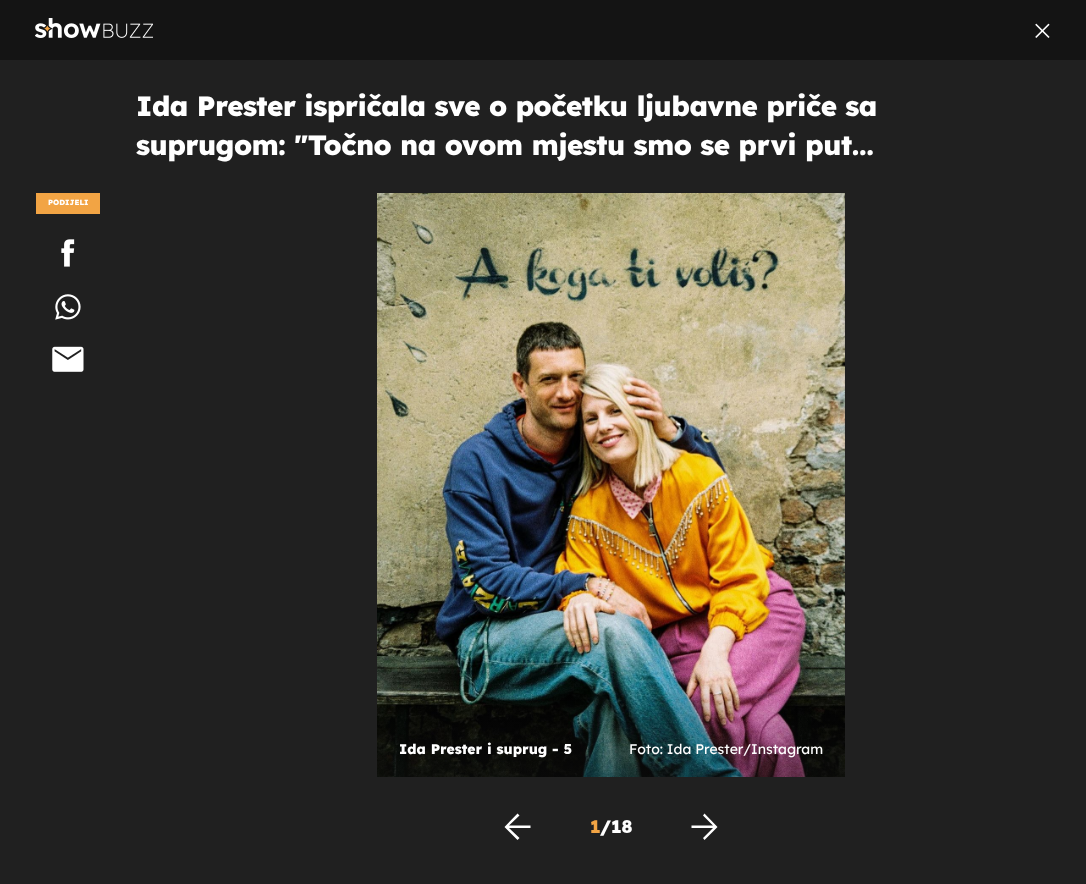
<svg xmlns="http://www.w3.org/2000/svg" xmlns:xlink="http://www.w3.org/1999/xlink" width="1086" height="884" viewBox="0 0 1086 884">
<style>
.cls-1{font:800 27.85px Lexend;letter-spacing:-0.55px;fill:#ffffff}
.cls-2{font:800 7.5px Lexend;fill:#ffffff}
.cls-3{font:800 14px Lexend;fill:#ffffff}
.cls-4{font:14px Lexend;fill:#ffffff}
.cls-5{font:800 18px Lexend;fill:#f2a444}
.cls-6{font:800 18px Lexend;fill:#ffffff}
</style>
<defs>
<linearGradient id="g1" gradientUnits="userSpaceOnUse" x1="611" y1="777" x2="611" y2="679"><stop offset="0" stop-color="#141414" stop-opacity="0.4"/><stop offset="1" stop-color="#141414" stop-opacity="0"/></linearGradient>
</defs>
<rect width="100%" height="100%" fill="#202020"/>
<rect fill="#141414" x="0" y="0" width="1086" height="60"/>
<image xlink:href="image0.png" x="35" y="18" width="118" height="20"/>
<image xlink:href="image1.png" x="1035" y="23" width="15" height="15"/>
<rect fill="#f2a444" x="36" y="193" width="64" height="21"/>
<image xlink:href="image2.png" x="61" y="239" width="14" height="28"/>
<image xlink:href="image3.png" x="55" y="294" width="26" height="26"/>
<image xlink:href="image4.png" x="52" y="346" width="32" height="26"/>
<image xlink:href="image5.png" x="377" y="193" width="468" height="584"/>
<rect fill="url(#g1)" x="377" y="684" width="468" height="93"/>
<path fill="#ffffff" d="M517.5 840L519.5 838L509 828H530.5V825.5H509L519.5 815.5L517.5 813.5L504.5 827Z"/>
<path fill="#ffffff" d="M704.5 840L703 838L713 828H691.5V825.5H713L703 815.5L704.5 813.5L717.5 827Z"/>
<text class="cls-1"><tspan x="136" y="116">Ida Prester ispričala sve o početku ljubavne priče sa</tspan><tspan x="136" y="155">suprugom: "Točno na ovom mjestu smo se prvi put…</tspan></text>
<text class="cls-2" x="48" y="205">PODIJELI</text>
<text class="cls-3" x="399" y="754">Ida Prester i suprug - 5</text>
<text class="cls-4" x="629" y="754">Foto: Ida Prester/Instagram</text>
<text class="cls-5" x="590" y="833">1</text>
<text class="cls-6" x="600" y="833">/</text>
<text class="cls-6" x="611" y="833">18</text>
</svg>
